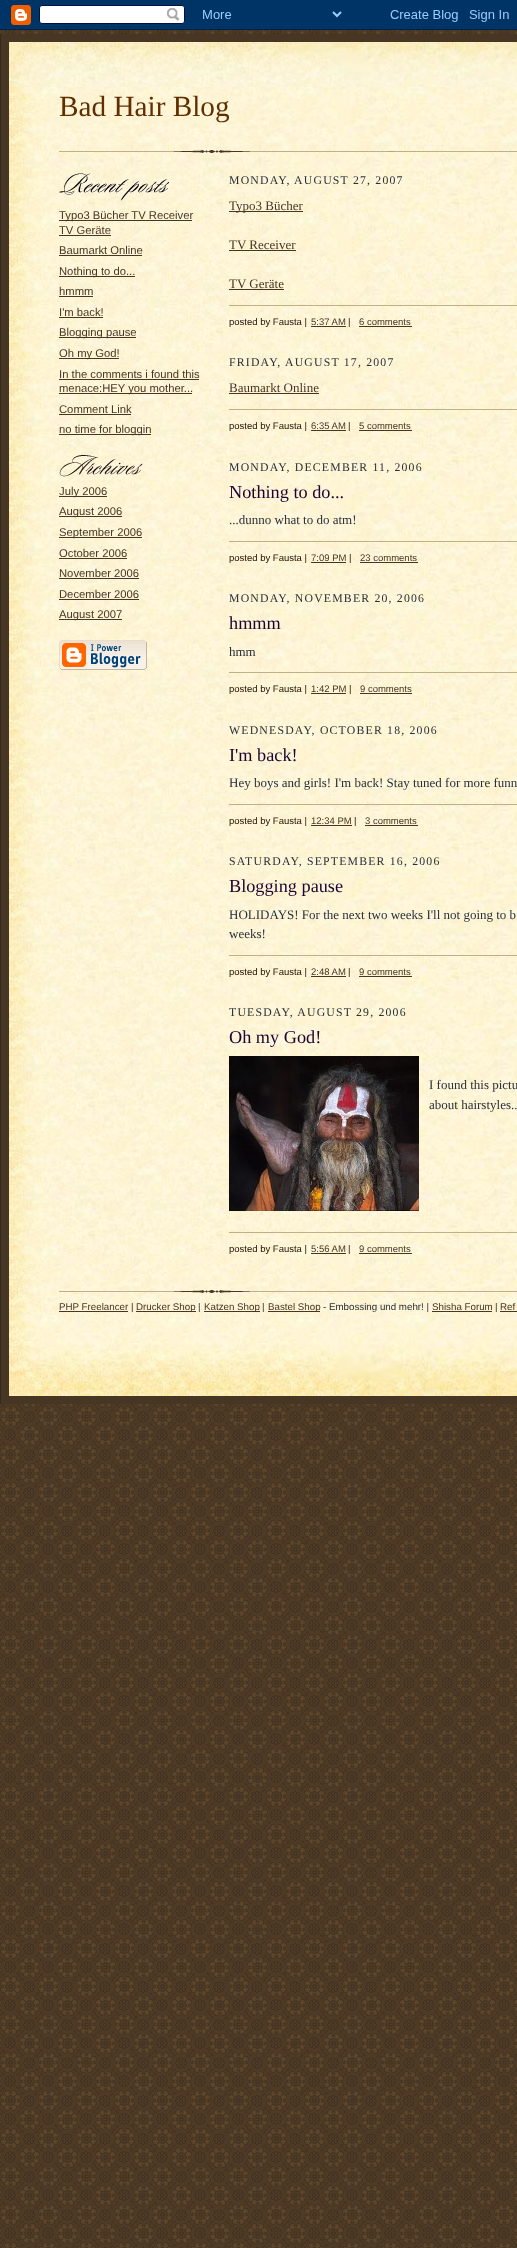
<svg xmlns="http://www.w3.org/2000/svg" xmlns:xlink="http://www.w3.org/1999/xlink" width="517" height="2248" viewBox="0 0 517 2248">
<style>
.cls-1{font:29.25px Liberation Serif;fill:#612e00}
.cls-2{font:11.25px Liberation Sans;fill:#473624}
.cls-3{font:11.75px Liberation Serif;letter-spacing:1.2px;fill:#29303b}
.cls-4{font:13px Liberation Serif;fill:#473624}
.cls-5{font:9.5px Liberation Sans;fill:#211104}
.cls-6{font:9.5px Liberation Sans;fill:#473624}
.cls-7{font:18.25px Liberation Serif;fill:#1b0431}
.cls-8{font:13px Liberation Serif;fill:#29303b}
.cls-9{font:9.75px Liberation Sans;fill:#473624}
.cls-10{font:9.75px Liberation Sans;fill:#29303b}
</style>
<rect width="100%" height="100%" fill="#ffffff"/>
<image xlink:href="image0.png" x="0" y="30" width="517" height="2218"/>
<image xlink:href="image1.png" x="0" y="0" width="517" height="30"/>
<rect fill="#473624" x="1" y="34" width="516" height="1370"/>
<rect fill="#332a24" x="0" y="34" width="1" height="1370"/>
<image xlink:href="image2.png" x="9" y="42" width="508" height="45"/>
<image xlink:href="image3.png" x="9" y="87" width="508" height="1228"/>
<image xlink:href="image4.png" x="59" y="150" width="458" height="3"/>
<image xlink:href="image5.png" x="59" y="173" width="110" height="28"/>
<rect fill="#473624" x="59" y="220" width="133" height="1"/>
<rect fill="#473624" x="59" y="235" width="52" height="1"/>
<rect fill="#473624" x="59" y="255" width="83" height="1"/>
<rect fill="#473624" x="59" y="276" width="76" height="1"/>
<rect fill="#473624" x="59" y="296" width="34" height="1"/>
<rect fill="#473624" x="59" y="317" width="44" height="1"/>
<rect fill="#473624" x="59" y="337" width="77" height="1"/>
<rect fill="#473624" x="59" y="358" width="60" height="1"/>
<rect fill="#473624" x="59" y="379" width="140" height="1"/>
<rect fill="#473624" x="59" y="393" width="133" height="1"/>
<rect fill="#473624" x="59" y="414" width="72" height="1"/>
<rect fill="#473624" x="59" y="434" width="92" height="1"/>
<image xlink:href="image6.png" x="59" y="455" width="84" height="22"/>
<rect fill="#473624" x="59" y="496" width="48" height="1"/>
<rect fill="#473624" x="59" y="516" width="63" height="1"/>
<rect fill="#473624" x="59" y="537" width="83" height="1"/>
<rect fill="#473624" x="59" y="558" width="68" height="1"/>
<rect fill="#473624" x="59" y="578" width="80" height="1"/>
<rect fill="#473624" x="59" y="599" width="80" height="1"/>
<rect fill="#473624" x="59" y="619" width="63" height="1"/>
<image xlink:href="image7.png" x="59" y="640" width="88" height="30"/>
<rect fill="#473624" x="229" y="211" width="74" height="1"/>
<rect fill="#473624" x="229" y="250" width="67" height="1"/>
<rect fill="#473624" x="229" y="289" width="55" height="1"/>
<rect fill="#bfb186" x="229" y="305" width="288" height="1"/>
<rect fill="#473624" x="311" y="326" width="35" height="1"/>
<rect fill="#473624" x="359" y="326" width="53" height="1"/>
<rect fill="#473624" x="229" y="393" width="90" height="1"/>
<rect fill="#bfb186" x="229" y="409" width="288" height="1"/>
<rect fill="#473624" x="311" y="430" width="35" height="1"/>
<rect fill="#473624" x="359" y="430" width="53" height="1"/>
<rect fill="#bfb186" x="229" y="541" width="288" height="1"/>
<rect fill="#473624" x="311" y="562" width="35" height="1"/>
<rect fill="#473624" x="360" y="562" width="58" height="1"/>
<rect fill="#bfb186" x="229" y="672" width="288" height="1"/>
<rect fill="#473624" x="311" y="693" width="35" height="1"/>
<rect fill="#473624" x="360" y="693" width="52" height="1"/>
<rect fill="#bfb186" x="229" y="804" width="288" height="1"/>
<rect fill="#473624" x="311" y="825" width="41" height="1"/>
<rect fill="#473624" x="365" y="825" width="53" height="1"/>
<rect fill="#bfb186" x="229" y="955" width="288" height="1"/>
<rect fill="#473624" x="311" y="976" width="35" height="1"/>
<rect fill="#473624" x="359" y="976" width="53" height="1"/>
<image xlink:href="image8.png" x="229" y="1056" width="190" height="155"/>
<rect fill="#bfb186" x="229" y="1232" width="288" height="1"/>
<rect fill="#473624" x="311" y="1253" width="35" height="1"/>
<rect fill="#473624" x="359" y="1253" width="53" height="1"/>
<image xlink:href="image9.png" x="59" y="1290" width="458" height="3"/>
<rect fill="#473624" x="59" y="1311" width="69" height="1"/>
<rect fill="#473624" x="136" y="1311" width="60" height="1"/>
<rect fill="#473624" x="204" y="1311" width="56" height="1"/>
<rect fill="#473624" x="268" y="1311" width="52" height="1"/>
<rect fill="#473624" x="432" y="1311" width="60" height="1"/>
<rect fill="#473624" x="500" y="1311" width="17" height="1"/>
<image xlink:href="image10.png" x="9" y="1315" width="508" height="81"/>
<text class="cls-1" x="59" y="116">Bad Hair Blog</text>
<text class="cls-2"><tspan x="59" y="219">Typo3 Bücher TV Receiver</tspan><tspan x="59" y="234">TV Geräte</tspan><tspan x="59" y="254">Baumarkt Online</tspan><tspan x="59" y="275">Nothing to do...</tspan><tspan x="59" y="295">hmmm</tspan><tspan x="59" y="316">I'm back!</tspan><tspan x="59" y="336">Blogging pause</tspan><tspan x="59" y="357">Oh my God!</tspan><tspan x="59" y="378">In the comments i found this</tspan><tspan x="59" y="392">menace:HEY you mother...</tspan><tspan x="59" y="413">Comment Link</tspan><tspan x="59" y="433">no time for bloggin</tspan></text>
<text class="cls-2"><tspan x="59" y="495">July 2006</tspan><tspan x="59" y="515">August 2006</tspan><tspan x="59" y="536">September 2006</tspan><tspan x="59" y="557">October 2006</tspan><tspan x="59" y="577">November 2006</tspan><tspan x="59" y="598">December 2006</tspan><tspan x="59" y="618">August 2007</tspan></text>
<text class="cls-3" x="229" y="184">MONDAY, AUGUST 27, 2007</text>
<text class="cls-4" x="229" y="210">Typo3 Bücher</text>
<text class="cls-4" x="229" y="249">TV Receiver</text>
<text class="cls-4" x="229" y="288">TV Geräte</text>
<text class="cls-5" x="229" y="325">posted by Fausta |</text>
<text class="cls-6" x="311" y="325">5:37 AM</text>
<text class="cls-5" x="348" y="325">|</text>
<text class="cls-6" x="359" y="325">6 comments</text>
<text class="cls-3" x="229" y="366">FRIDAY, AUGUST 17, 2007</text>
<text class="cls-4" x="229" y="392">Baumarkt Online</text>
<text class="cls-5" x="229" y="429">posted by Fausta |</text>
<text class="cls-6" x="311" y="429">6:35 AM</text>
<text class="cls-5" x="348" y="429">|</text>
<text class="cls-6" x="359" y="429">5 comments</text>
<text class="cls-3" x="229" y="471">MONDAY, DECEMBER 11, 2006</text>
<text class="cls-7" x="229" y="498">Nothing to do...</text>
<text class="cls-8" x="229" y="524">...dunno what to do atm!</text>
<text class="cls-5" x="229" y="561">posted by Fausta |</text>
<text class="cls-6" x="311" y="561">7:09 PM</text>
<text class="cls-5" x="349" y="561">|</text>
<text class="cls-6" x="360" y="561">23 comments</text>
<text class="cls-3" x="229" y="602">MONDAY, NOVEMBER 20, 2006</text>
<text class="cls-7" x="229" y="629">hmmm</text>
<text class="cls-8" x="229" y="656">hmm</text>
<text class="cls-5" x="229" y="692">posted by Fausta |</text>
<text class="cls-6" x="311" y="692">1:42 PM</text>
<text class="cls-5" x="349" y="692">|</text>
<text class="cls-6" x="360" y="692">9 comments</text>
<text class="cls-3" x="229" y="734">WEDNESDAY, OCTOBER 18, 2006</text>
<text class="cls-7" x="229" y="761">I'm back!</text>
<text class="cls-8" x="229" y="787">Hey boys and girls! I'm back! Stay tuned for more funn</text>
<text class="cls-5" x="229" y="824">posted by Fausta |</text>
<text class="cls-6" x="311" y="824">12:34 PM</text>
<text class="cls-5" x="354" y="824">|</text>
<text class="cls-6" x="365" y="824">3 comments</text>
<text class="cls-3" x="229" y="865">SATURDAY, SEPTEMBER 16, 2006</text>
<text class="cls-7" x="229" y="892">Blogging pause</text>
<text class="cls-8"><tspan x="229" y="919">HOLIDAYS! For the next two weeks I'll not going to b</tspan><tspan x="229" y="938">weeks!</tspan></text>
<text class="cls-5" x="229" y="975">posted by Fausta |</text>
<text class="cls-6" x="311" y="975">2:48 AM</text>
<text class="cls-5" x="348" y="975">|</text>
<text class="cls-6" x="359" y="975">9 comments</text>
<text class="cls-3" x="229" y="1016">TUESDAY, AUGUST 29, 2006</text>
<text class="cls-7" x="229" y="1043">Oh my God!</text>
<text class="cls-8"><tspan x="429" y="1089">I found this pictu</tspan><tspan x="429" y="1109">about hairstyles..</tspan></text>
<text class="cls-5" x="229" y="1252">posted by Fausta |</text>
<text class="cls-6" x="311" y="1252">5:56 AM</text>
<text class="cls-5" x="348" y="1252">|</text>
<text class="cls-6" x="359" y="1252">9 comments</text>
<text class="cls-9" x="59" y="1310">PHP Freelancer</text>
<text class="cls-10" x="131" y="1310">|</text>
<text class="cls-9" x="136" y="1310">Drucker Shop</text>
<text class="cls-10" x="198" y="1310">|</text>
<text class="cls-9" x="204" y="1310">Katzen Shop</text>
<text class="cls-10" x="262" y="1310">|</text>
<text class="cls-9" x="268" y="1310">Bastel Shop</text>
<text class="cls-10" x="323" y="1310">- Embossing und mehr! |</text>
<text class="cls-9" x="432" y="1310">Shisha Forum</text>
<text class="cls-10" x="495" y="1310">|</text>
<text class="cls-9" x="500" y="1310">Ref</text>
</svg>
